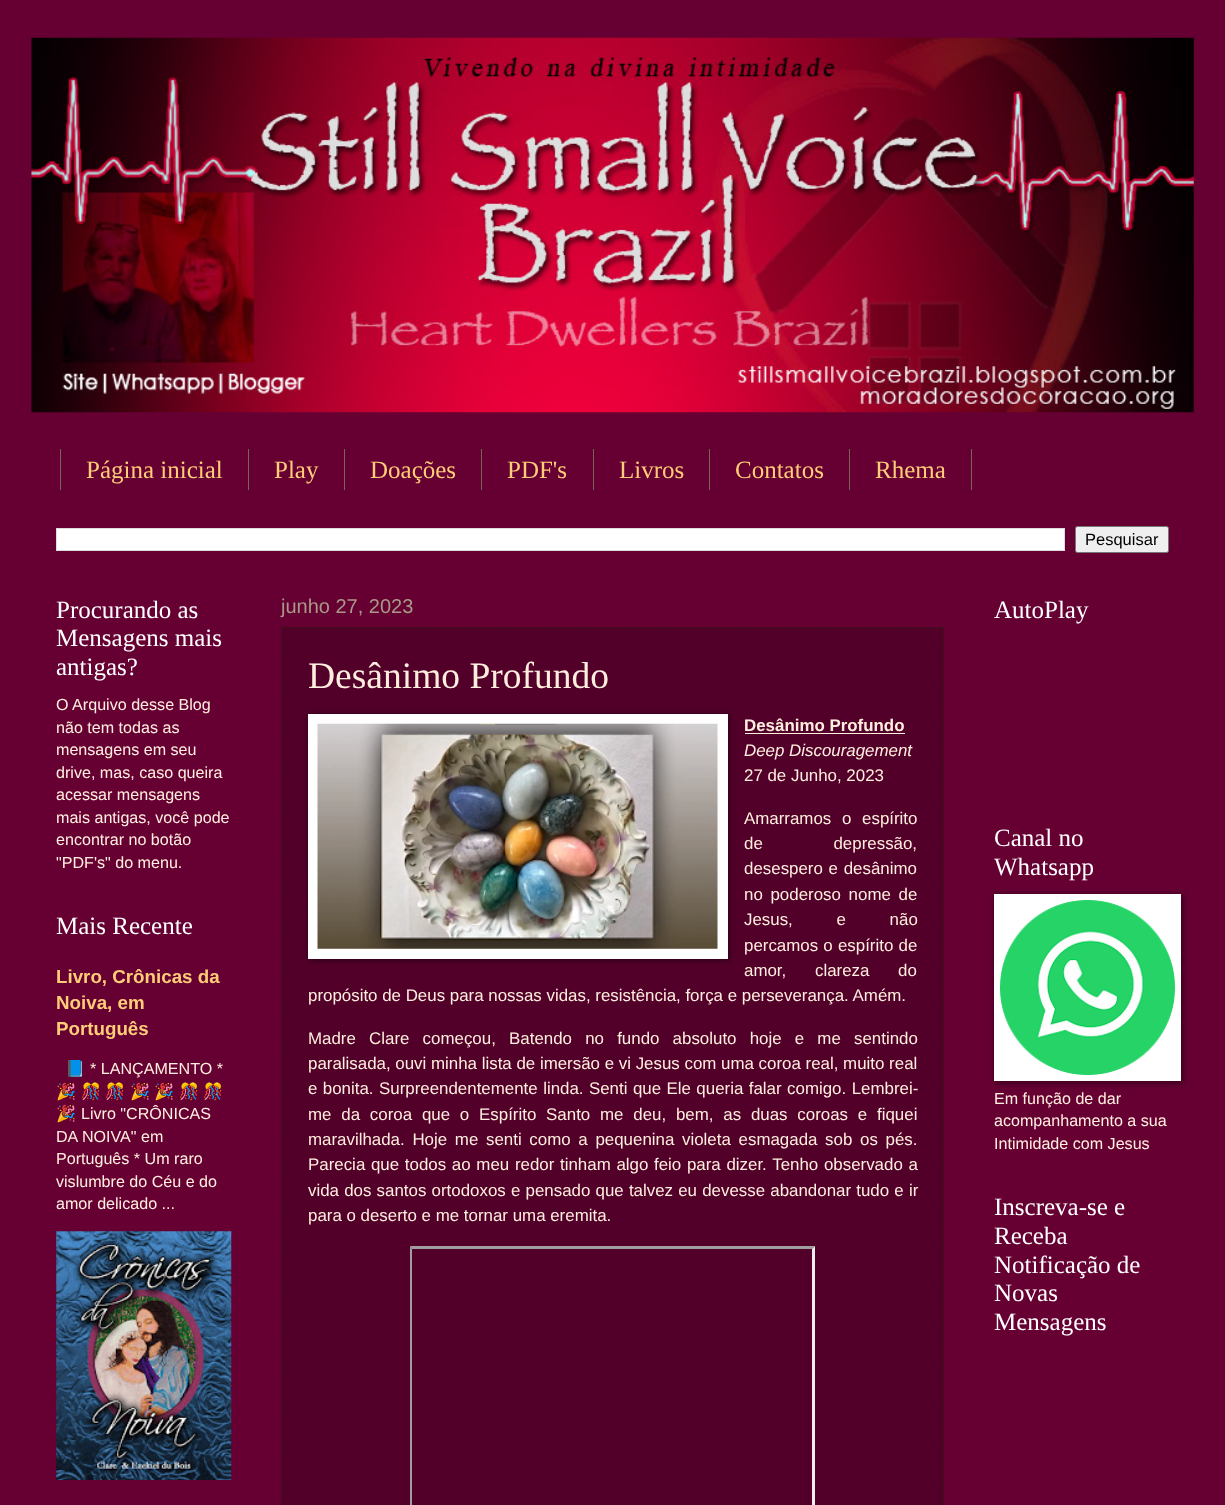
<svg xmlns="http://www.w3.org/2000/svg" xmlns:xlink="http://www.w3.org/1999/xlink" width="1225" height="1505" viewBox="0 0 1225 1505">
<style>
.cls-1{font:25px Liberation Serif;fill:#ffcc77}
.cls-2{font:16.5px Liberation Sans;fill:#000000}
.cls-3{font:25px Liberation Serif;fill:#ffffff}
.cls-4{font:16.1px Liberation Sans;fill:#ffeedd}
.cls-5{font:bold 18.75px Liberation Sans;fill:#ffcc77}
.cls-6{font:16.1px Noto Color Emoji;fill:#ffeedd}
.cls-7{font:20px Liberation Sans;fill:#aa9988}
.cls-8{font:37.5px Liberation Serif;fill:#ffeedd}
.cls-9{font:bold 16.9px Liberation Sans;fill:#ffeedd}
.cls-10{font:italic 16.9px Liberation Sans;fill:#ffeedd}
.cls-11{font:16.9px Liberation Sans;fill:#ffeedd}
</style>
<rect width="100%" height="100%" fill="#660033"/>
<image xlink:href="image0.png" x="31" y="37" width="1163" height="376"/>
<rect fill="#776655" x="248" y="449" width="1" height="41"/>
<rect fill="#776655" x="60" y="449" width="1" height="41"/>
<rect fill="#776655" x="344" y="449" width="1" height="41"/>
<rect fill="#776655" x="481" y="449" width="1" height="41"/>
<rect fill="#776655" x="593" y="449" width="1" height="41"/>
<rect fill="#776655" x="709" y="449" width="1" height="41"/>
<rect fill="#776655" x="849" y="449" width="1" height="41"/>
<rect fill="#776655" x="971" y="449" width="1" height="41"/>
<rect fill="#ffffff" stroke="#dddddd" x="56.5" y="528.5" width="1008" height="22"/>
<rect fill="#efefef" stroke="#767676" x="1075.5" y="526.5" width="93" height="26" rx="2"/>
<image xlink:href="image1.png" x="56" y="1231" width="176" height="249"/>
<rect fill="#520029" x="281" y="627" width="663" height="878"/>
<path fill="none" stroke="#332211" stroke-width="1.2" stroke-dasharray="1.25 1.25" d="M281 628H944"/>
<path fill="none" stroke="#332211" stroke-width="1.2" stroke-dasharray="1.25 1.25" d="M943 627.5V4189"/>
<path fill="none" stroke="#332211" stroke-width="1.2" stroke-dasharray="1.25 1.25" d="M282 627.5V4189"/>
<rect fill="#000000" fill-opacity="0.5" filter="blur(3px)" x="309" y="715" width="420" height="245"/>
<rect fill="#ffffff" x="308" y="714" width="420" height="245"/>
<image xlink:href="image2.png" x="317" y="723" width="401" height="226"/>
<rect fill="#ffeedd" x="745" y="733" width="160" height="1"/>
<path fill="#9f9f9f" d="M410 1246H815L812 1249H412Z"/>
<path fill="#9f9f9f" d="M410 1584V1246L412 1249V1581Z"/>
<path fill="#eeeeee" d="M815 1246V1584L812 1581V1249Z"/>
<rect fill="#000000" fill-opacity="0.5" filter="blur(3px)" x="995" y="895" width="188" height="188"/>
<rect fill="#ffffff" x="994" y="894" width="187" height="187"/>
<image xlink:href="image3.png" x="1000" y="900" width="175" height="175"/>
<text class="cls-1" x="86" y="478">Página inicial</text>
<text class="cls-1" x="274" y="478">Play</text>
<text class="cls-1" x="370" y="478">Doações</text>
<text class="cls-1" x="507" y="478">PDF's</text>
<text class="cls-1" x="619" y="478">Livros</text>
<text class="cls-1" x="735" y="478">Contatos</text>
<text class="cls-1" x="875" y="478">Rhema</text>
<text class="cls-2" x="1085" y="545">Pesquisar</text>
<text class="cls-3"><tspan x="56" y="618">Procurando as</tspan><tspan x="56" y="646">Mensagens mais</tspan><tspan x="56" y="675">antigas?</tspan></text>
<text class="cls-4"><tspan x="56" y="710">O Arquivo desse Blog</tspan><tspan x="56" y="733">não tem todas as</tspan><tspan x="56" y="755">mensagens em seu</tspan><tspan x="56" y="778">drive, mas, caso queira</tspan><tspan x="56" y="800">acessar mensagens</tspan><tspan x="56" y="823">mais antigas, você pode</tspan><tspan x="56" y="845">encontrar no botão</tspan><tspan x="56" y="868">"PDF's" do menu.</tspan></text>
<text class="cls-3" x="56" y="934">Mais Recente</text>
<text class="cls-5"><tspan x="56" y="983">Livro, Crônicas da</tspan><tspan x="56" y="1009">Noiva, em</tspan><tspan x="56" y="1035">Português</tspan></text>
<text class="cls-6" x="65" y="1074">📘</text>
<text class="cls-4" x="90" y="1074">* LANÇAMENTO *</text>
<text class="cls-6" x="56" y="1097">🎉</text>
<text class="cls-6" x="81" y="1097">🎊</text>
<text class="cls-6" x="105" y="1097">🎊</text>
<text class="cls-6" x="130" y="1097">🎉</text>
<text class="cls-6" x="154" y="1097">🎉</text>
<text class="cls-6" x="179" y="1097">🎊</text>
<text class="cls-6" x="203" y="1097">🎊</text>
<text class="cls-6" x="56" y="1119">🎉</text>
<text class="cls-4" x="81" y="1119">Livro "CRÔNICAS</text>
<text class="cls-4"><tspan x="56" y="1142">DA NOIVA" em</tspan><tspan x="56" y="1164">Português * Um raro</tspan><tspan x="56" y="1187">vislumbre do Céu e do</tspan><tspan x="56" y="1209">amor delicado ...</tspan></text>
<text class="cls-7" x="281" y="613">junho 27, 2023</text>
<text class="cls-8" x="308" y="688">Desânimo Profundo</text>
<text class="cls-9" x="744" y="731">Desânimo Profundo</text>
<text class="cls-10" x="744" y="756">Deep Discouragement</text>
<text class="cls-11" x="744" y="781">27 de Junho, 2023</text>
<text class="cls-11"><tspan x="744" y="824" word-spacing="6">Amarramos o espírito</tspan><tspan x="744" y="849" word-spacing="66">de depressão,</tspan><tspan x="744" y="874" word-spacing="1">desespero e desânimo</tspan><tspan x="744" y="900" word-spacing="3">no poderoso nome de</tspan><tspan x="744" y="925" word-spacing="39">Jesus, e não</tspan><tspan x="744" y="951" word-spacing="0.5">percamos o espírito de</tspan><tspan x="744" y="976" word-spacing="24">amor, clareza do</tspan></text>
<text class="cls-11" x="308" y="1001">propósito de Deus para nossas vidas, resistência, força e perseverança. Amém.</text>
<text class="cls-11"><tspan x="308" y="1044" word-spacing="8.5">Madre Clare começou, Batendo no fundo absoluto hoje e me sentindo</tspan><tspan x="308" y="1069">paralisada, ouvi minha lista de imersão e vi Jesus com uma coroa real, muito real</tspan><tspan x="308" y="1094" word-spacing="0.75">e bonita. Surpreendentemente linda. Senti que Ele queria falar comigo. Lembrei-</tspan><tspan x="308" y="1120" word-spacing="5.1">me da coroa que o Espírito Santo me deu, bem, as duas coroas e fiquei</tspan><tspan x="308" y="1145" word-spacing="3">maravilhada. Hoje me senti como a pequenina violeta esmagada sob os pés.</tspan><tspan x="308" y="1170" word-spacing="1">Parecia que todos ao meu redor tinham algo feio para dizer. Tenho observado a</tspan><tspan x="308" y="1196" word-spacing="0.5">vida dos santos ortodoxos e pensado que talvez eu devesse abandonar tudo e ir</tspan><tspan x="308" y="1221">para o deserto e me tornar uma eremita.</tspan></text>
<text class="cls-3" x="994" y="618">AutoPlay</text>
<text class="cls-3"><tspan x="994" y="846">Canal no</tspan><tspan x="994" y="875">Whatsapp</tspan></text>
<text class="cls-4"><tspan x="994" y="1104">Em função de dar</tspan><tspan x="994" y="1126">acompanhamento a sua</tspan><tspan x="994" y="1149">Intimidade com Jesus</tspan></text>
<text class="cls-3"><tspan x="994" y="1215">Inscreva-se e</tspan><tspan x="994" y="1244">Receba</tspan><tspan x="994" y="1273">Notificação de</tspan><tspan x="994" y="1301">Novas</tspan><tspan x="994" y="1330">Mensagens</tspan></text>
</svg>
